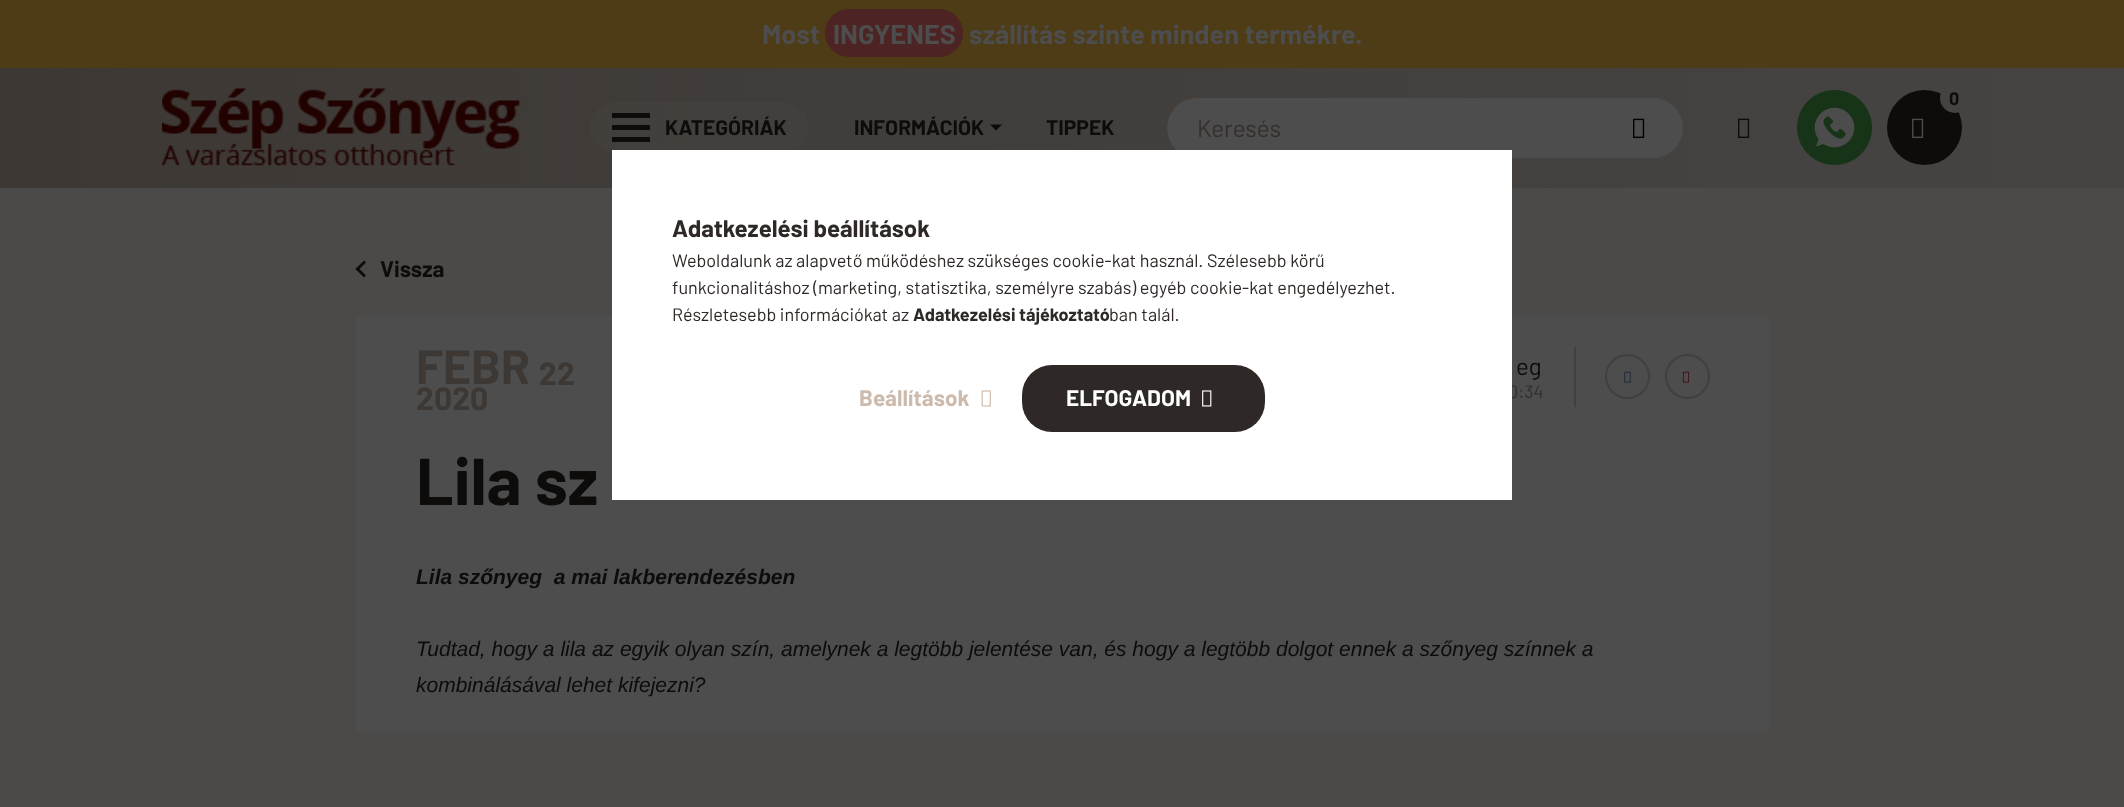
<svg xmlns="http://www.w3.org/2000/svg" xmlns:xlink="http://www.w3.org/1999/xlink" width="2124" height="807" viewBox="0 0 2124 807">
<style>
.cls-1{font:bold 27px Barlow;fill:#4d4d4d}
.cls-2{font:bold 21px Barlow;fill:#0e0c0b}
.cls-3{font:bold 18px Barlow;fill:#0e0c0b}
.cls-4{font:24px Barlow;fill:#342f2c}
.cls-5{font:bold 22.5px Barlow;fill:#0e0c0b}
.cls-6{font:bold 48px Barlow;fill:#3d3834}
.cls-7{font:bold 32px Barlow;fill:#3d3834}
.cls-8{font:24px Barlow;fill:#0e0c0b}
.cls-9{font:18px Barlow;fill:#342f2c}
.cls-10{font:bold 66px Barlow;fill:#0e0c0b}
.cls-11{font:italic bold 21px Liberation Sans;fill:#0e0c0b}
.cls-12{font:italic 21px Liberation Sans;fill:#0e0c0b}
.cls-13{font:bold 24px Barlow;fill:#2e2926}
.cls-14{font:18px Barlow;fill:#2e2926}
.cls-15{font:bold 18px Barlow;fill:#2e2926}
.cls-16{font:bold 22.5px Barlow;fill:#ccbbad}
.cls-17{font:bold 22.5px Barlow;fill:#ffffff}
</style>
<defs>
<linearGradient id="g1" gradientUnits="userSpaceOnUse" x1="0" y1="404" x2="2124" y2="403"><stop offset="0" stop-color="#3d3834"/><stop offset="1" stop-color="#464443"/></linearGradient>
<linearGradient id="g2" gradientUnits="userSpaceOnUse" x1="1022" y1="398" x2="1751" y2="398"><stop offset="0.33" stop-color="#2e2926"/><stop offset="0.67" stop-color="#ccbbad"/></linearGradient>
</defs>
<rect width="100%" height="100%" fill="#4b4a49"/>
<rect fill="#4d3c16" x="0" y="0" width="2124" height="68"/>
<rect fill="#4d2323" x="825" y="9" width="138" height="48" rx="24"/>
<rect fill="url(#g1)" x="0" y="68" width="2124" height="120"/>
<image xlink:href="image0.png" x="162" y="88" width="359" height="78"/>
<rect fill="#4d4d4d" fill-opacity="0.2" x="590" y="102" width="219" height="51" rx="25.5"/>
<rect fill="#0e0c0b" x="612" y="113" width="38" height="5"/>
<rect fill="#0e0c0b" x="612" y="125" width="38" height="5"/>
<rect fill="#0e0c0b" x="612" y="137" width="38" height="5"/>
<path fill="#0e0c0b" d="M990 124.5H1002L996 130.5Z"/>
<image xlink:href="image1.png" x="1797" y="90" width="75" height="75"/>
<circle fill="#0e0c0b" cx="1924.5" cy="127.5" r="37.5"/>
<circle fill="url(#g1)" cx="1955" cy="98" r="15"/>
<image xlink:href="image2.png" x="1912" y="118" width="12" height="20"/>
<rect fill="#4d4d4d" x="1167" y="98" width="516" height="60" rx="30"/>
<image xlink:href="image3.png" x="1633" y="118" width="12" height="20"/>
<image xlink:href="image4.png" x="1738" y="118" width="12" height="20"/>
<path fill="#0e0c0b" d="M355.5 269L364 260.5L366 262.5L357.5 271Z"/>
<path fill="#0e0c0b" d="M357.5 267L366 275.5L364 277.5L355.5 269Z"/>
<rect fill="#4d4d4d" x="356" y="317" width="1413" height="414"/>
<rect fill="#404040" x="1574" y="347" width="2" height="60"/>
<circle fill="none" stroke="#404040" stroke-width="2" cx="1627.5" cy="376.5" r="21.5"/>
<image xlink:href="image5.png" x="1624" y="371" width="7" height="12"/>
<circle fill="none" stroke="#404040" stroke-width="2" cx="1687.5" cy="376.5" r="21.5"/>
<image xlink:href="image6.png" x="1682" y="371" width="8" height="12"/>
<text class="cls-1" x="762" y="44">Most</text>
<text class="cls-1" x="833" y="44">INGYENES</text>
<text class="cls-1" x="969" y="44">szállítás szinte minden termékre.</text>
<text class="cls-2" x="665" y="135">KATEGÓRIÁK</text>
<text class="cls-2" x="854" y="135">INFORMÁCIÓK</text>
<text class="cls-2" x="1046" y="135">TIPPEK</text>
<text class="cls-3" x="1949" y="105">0</text>
<text class="cls-4" x="1197" y="137">Keresés</text>
<text class="cls-5" x="380" y="277">Vissza</text>
<text class="cls-6" x="416" y="384">FEBR</text>
<text class="cls-7" x="539" y="385">22</text>
<text class="cls-7" x="416" y="410">2020</text>
<text class="cls-8" x="1516" y="375">eg</text>
<text class="cls-9" x="1508" y="398">0:34</text>
<text class="cls-10" x="416" y="505">Lila sz</text>
<text class="cls-11" xml:space="preserve" x="416" y="584">Lila szőnyeg  a mai lakberendezésben</text>
<text class="cls-12"><tspan x="416" y="656">Tudtad, hogy a lila az egyik olyan szín, amelynek a legtöbb jelentése van, és hogy a legtöbb dolgot ennek a szőnyeg színnek a</tspan><tspan x="416" y="692">kombinálásával lehet kifejezni?</tspan></text>
<rect fill="#ffffff" x="612" y="150" width="900" height="350"/>
<text class="cls-13" x="672" y="237">Adatkezelési beállítások</text>
<text class="cls-14"><tspan x="672" y="267">Weboldalunk az alapvető működéshez szükséges cookie-kat használ. Szélesebb körű</tspan><tspan x="672" y="294">funkcionalitáshoz (marketing, statisztika, személyre szabás) egyéb cookie-kat engedélyezhet.</tspan><tspan x="672" y="321">Részletesebb információkat az</tspan></text>
<text class="cls-15" x="913" y="321">Adatkezelési tájékoztató</text>
<text class="cls-14" x="1109" y="321">ban talál.</text>
<text class="cls-16" x="859" y="406">Beállítások</text>
<image xlink:href="image7.png" x="981" y="390" width="10" height="17"/>
<rect fill="url(#g2)" x="1022" y="365" width="243" height="67" rx="30"/>
<text class="cls-17" x="1066" y="406">ELFOGADOM</text>
<image xlink:href="image8.png" x="1202" y="390" width="10" height="17"/>
</svg>
